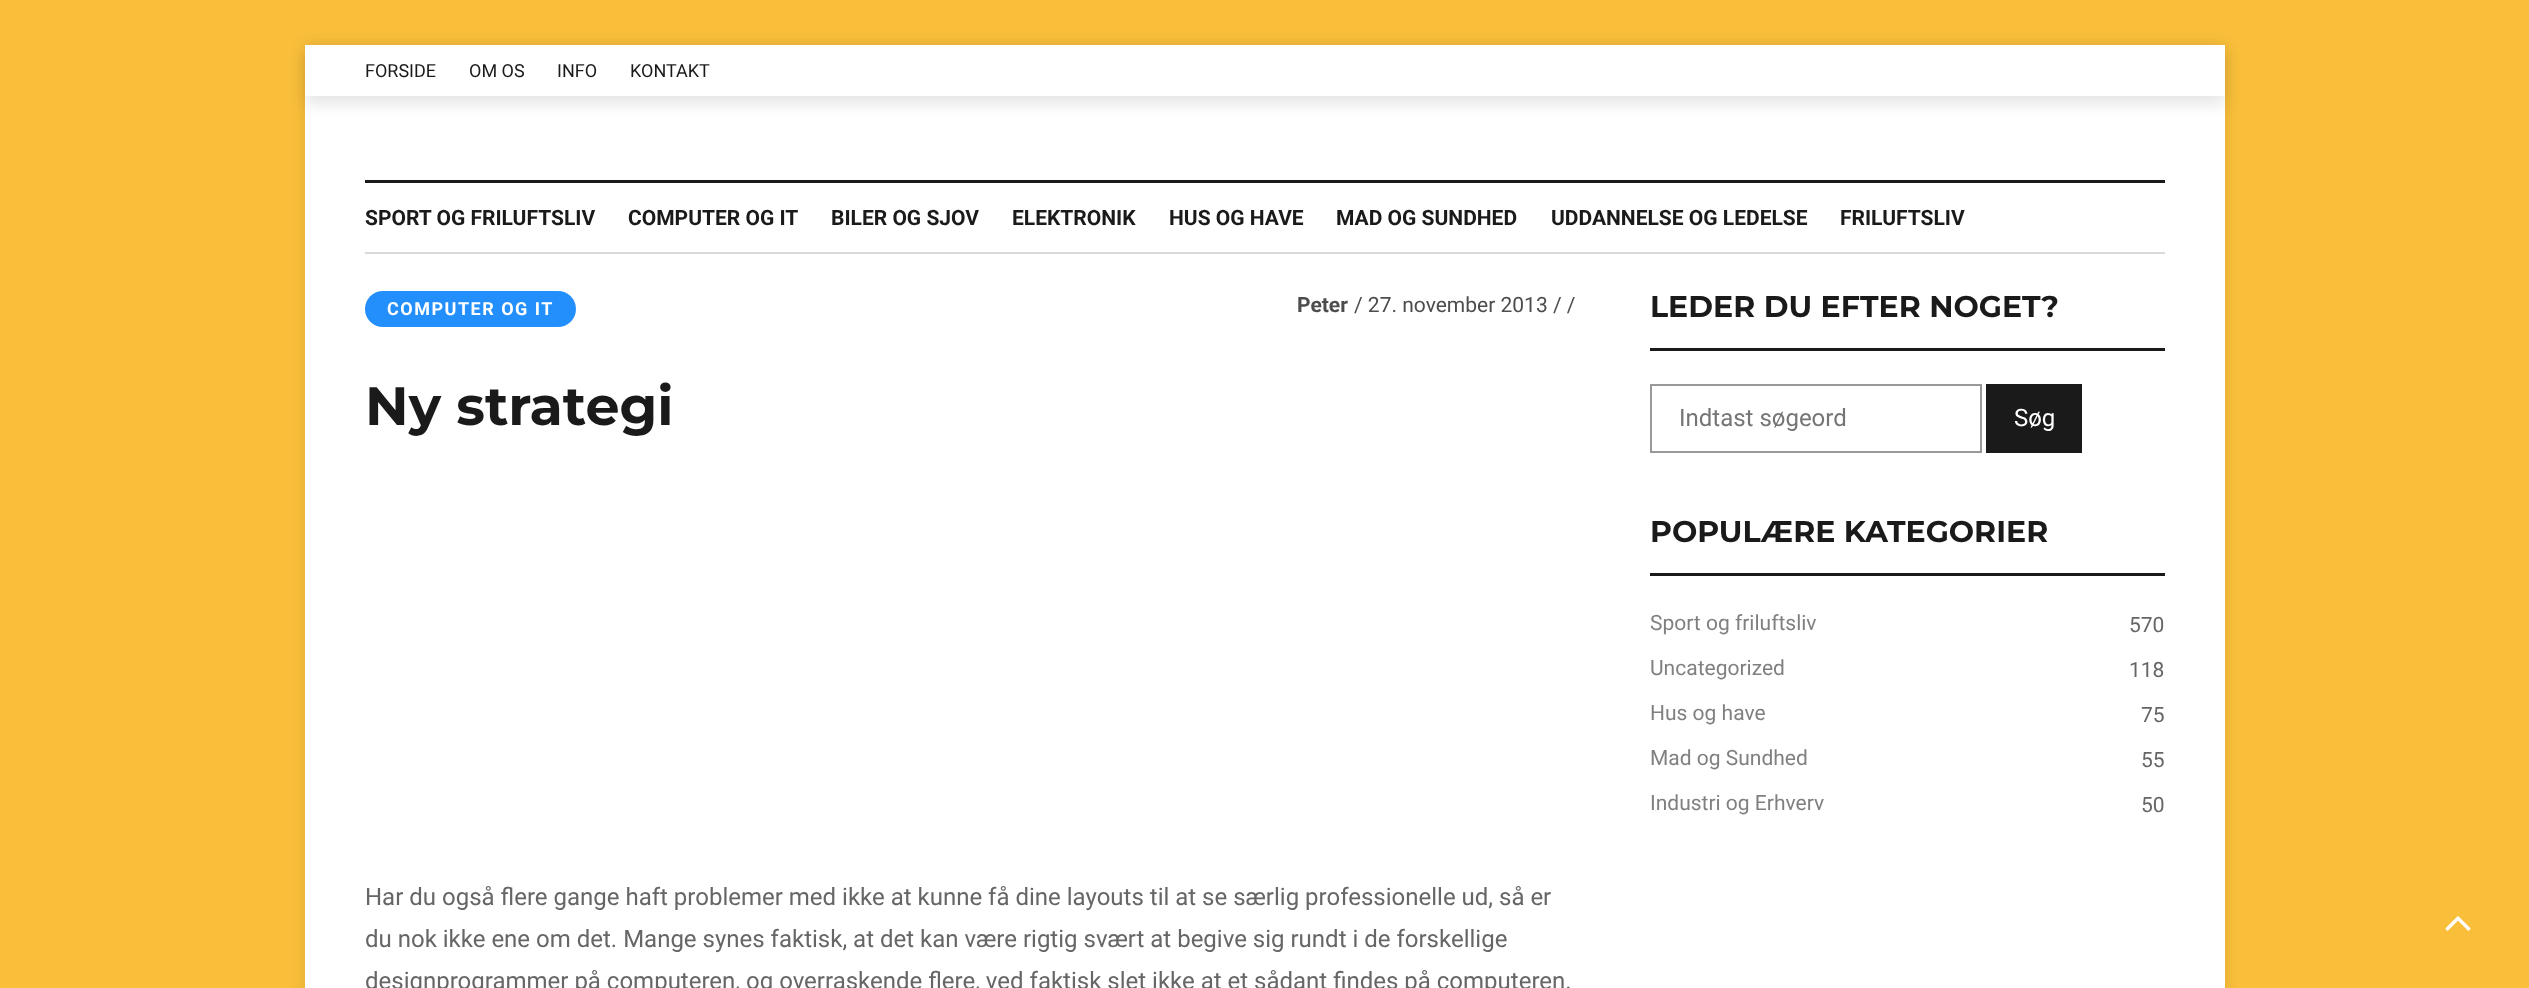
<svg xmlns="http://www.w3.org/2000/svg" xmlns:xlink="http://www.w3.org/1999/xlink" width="2529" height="988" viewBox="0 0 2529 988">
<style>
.cls-1{font:18px Roboto;fill:#1a1a1a}
.cls-2{font:bold 21px Roboto;fill:#1a1a1a}
.cls-3{font:bold 18px Roboto;letter-spacing:1.5px;fill:#ffffff}
.cls-4{font:bold 21px Roboto;fill:#4d4d4d}
.cls-5{font:21px Roboto;fill:#4d4d4d}
.cls-6{font:bold 54px Montserrat;fill:#1a1a1a}
.cls-7{font:24px Roboto;fill:#666666}
.cls-8{font:bold 30px Montserrat;fill:#1a1a1a}
.cls-9{font:24px Roboto;fill:#757575}
.cls-10{font:24px Roboto;fill:#ffffff}
.cls-11{font:21px Roboto;fill:#808080}
.cls-12{font:21px Roboto;fill:#666666}
</style>
<defs>
<clipPath id="clip1"><path d="M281 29H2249V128H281ZM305 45H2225V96H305Z" clip-rule="evenodd"/></clipPath>
</defs>
<rect width="100%" height="100%" fill="#f9bf3b"/>
<rect fill="#000000" fill-opacity="0.1" filter="blur(7.5px)" x="305" y="45" width="1920" height="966"/>
<rect fill="#ffffff" x="305" y="45" width="1920" height="943"/>
<g clip-path="url(#clip1)">
<rect fill="#000000" fill-opacity="0.1" filter="blur(7.5px)" x="305" y="53" width="1920" height="51"/>
</g>
<rect fill="#1a1a1a" x="365" y="180" width="1800" height="3"/>
<rect fill="#d9d9d9" x="365" y="252" width="1800" height="2"/>
<rect fill="#228ffc" x="365" y="291" width="211" height="36" rx="18"/>
<rect fill="#1a1a1a" x="1650" y="348" width="515" height="3"/>
<rect fill="none" stroke="#999999" stroke-width="2" x="1651" y="385" width="330" height="67"/>
<rect fill="#1a1a1a" x="1986" y="384" width="96" height="69"/>
<rect fill="#1a1a1a" x="1650" y="573" width="515" height="3"/>
<image xlink:href="image0.png" x="2445" y="916" width="26" height="15"/>
<text class="cls-1" x="365" y="77">FORSIDE</text>
<text class="cls-1" x="469" y="77">OM OS</text>
<text class="cls-1" x="557" y="77">INFO</text>
<text class="cls-1" x="630" y="77">KONTAKT</text>
<text class="cls-2" x="365" y="225">SPORT OG FRILUFTSLIV</text>
<text class="cls-2" x="628" y="225">COMPUTER OG IT</text>
<text class="cls-2" x="831" y="225">BILER OG SJOV</text>
<text class="cls-2" x="1012" y="225">ELEKTRONIK</text>
<text class="cls-2" x="1169" y="225">HUS OG HAVE</text>
<text class="cls-2" x="1336" y="225">MAD OG SUNDHED</text>
<text class="cls-2" x="1551" y="225">UDDANNELSE OG LEDELSE</text>
<text class="cls-2" x="1840" y="225">FRILUFTSLIV</text>
<text class="cls-3" x="387" y="315">COMPUTER OG IT</text>
<text class="cls-4" x="1297" y="312">Peter</text>
<text class="cls-5" x="1354" y="312">/ 27. november 2013 / /</text>
<text class="cls-6" x="365" y="425">Ny strategi</text>
<text class="cls-7"><tspan x="365" y="905">Har du også flere gange haft problemer med ikke at kunne få dine layouts til at se særlig professionelle ud, så er</tspan><tspan x="365" y="947">du nok ikke ene om det. Mange synes faktisk, at det kan være rigtig svært at begive sig rundt i de forskellige</tspan><tspan x="365" y="989">designprogrammer på computeren, og overraskende flere, ved faktisk slet ikke at et sådant findes på computeren.</tspan></text>
<text class="cls-8" x="1650" y="317">LEDER DU EFTER NOGET?</text>
<text class="cls-9" x="1679" y="426">Indtast søgeord</text>
<text class="cls-10" x="2014" y="426">Søg</text>
<text class="cls-8" x="1650" y="542">POPULÆRE KATEGORIER</text>
<text class="cls-11" x="1650" y="630">Sport og friluftsliv</text>
<text class="cls-12" x="2129" y="632">570</text>
<text class="cls-11" x="1650" y="675">Uncategorized</text>
<text class="cls-12" x="2129" y="677">118</text>
<text class="cls-11" x="1650" y="720">Hus og have</text>
<text class="cls-12" x="2141" y="722">75</text>
<text class="cls-11" x="1650" y="765">Mad og Sundhed</text>
<text class="cls-12" x="2141" y="767">55</text>
<text class="cls-11" x="1650" y="810">Industri og Erhverv</text>
<text class="cls-12" x="2141" y="812">50</text>
</svg>
